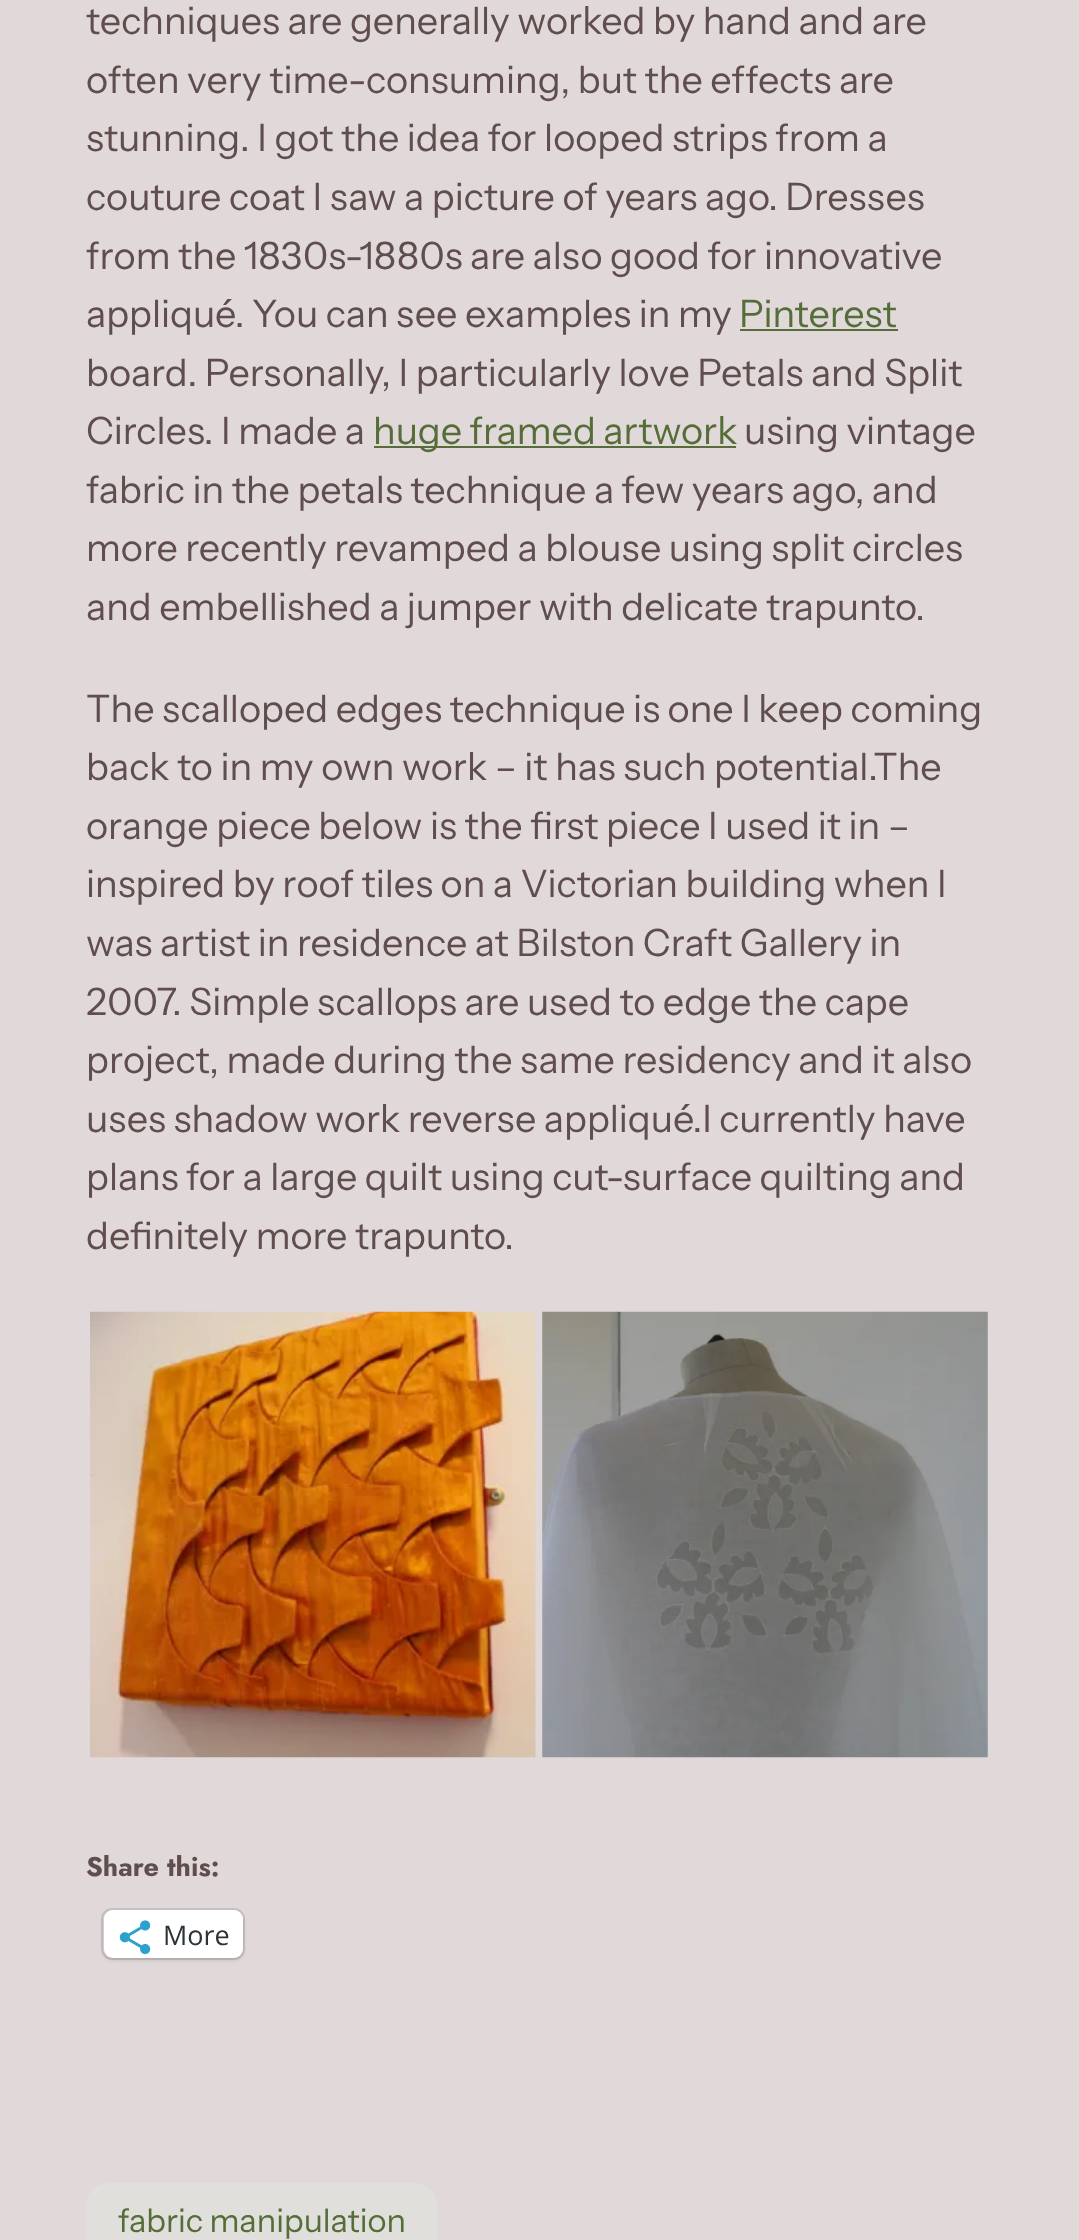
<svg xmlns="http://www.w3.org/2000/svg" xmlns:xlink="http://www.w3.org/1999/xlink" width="1079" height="2240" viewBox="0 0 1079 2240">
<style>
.cls-1{font:37.8px Instrument Sans;fill:#604d4d}
.cls-2{font:37.8px Instrument Sans;fill:#556e39}
.cls-3{font:bold 27px Jost;fill:#604d4d}
.cls-4{font:27px Open Sans;fill:#2c3338}
.cls-5{font:32.5px Instrument Sans;fill:#556e39}
</style>
<rect width="100%" height="100%" fill="#e1d9d9"/>
<rect fill="#556e39" x="740" y="329" width="158" height="2"/>
<rect fill="#556e39" x="374" y="446" width="362" height="2"/>
<image xlink:href="image0.png" x="90" y="1311" width="446" height="447"/>
<image xlink:href="image1.png" x="542" y="1311" width="446" height="447"/>
<rect fill="#dcdcde" x="86" y="1823" width="135" height="2"/>
<rect fill="none" stroke="#c6bfbf" stroke-width="2" x="102" y="1909" width="142" height="50" rx="10"/>
<rect fill="#000000" fill-opacity="0.12" filter="blur(2px)" x="104" y="1913" width="139" height="47" rx="9"/>
<rect fill="#ffffff" x="104" y="1910" width="139" height="48" rx="9"/>
<image xlink:href="image2.png" x="119" y="1920" width="32" height="35"/>
<rect fill="#e1dfdb" x="86" y="2183" width="351" height="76" rx="23"/>
<text class="cls-1"><tspan x="86" y="34">techniques are generally worked by hand and are</tspan><tspan x="86" y="93">often very time-consuming, but the effects are</tspan><tspan x="86" y="151">stunning. I got the idea for looped strips from a</tspan><tspan x="86" y="210">couture coat I saw a picture of years ago. Dresses</tspan><tspan x="86" y="269">from the 1830s-1880s are also good for innovative</tspan><tspan x="86" y="327">appliqué. You can see examples in my</tspan></text>
<text class="cls-2" x="739" y="327">Pinterest</text>
<text class="cls-1"><tspan x="86" y="386">board. Personally, I particularly love Petals and Split</tspan><tspan x="86" y="444">Circles. I made a</tspan></text>
<text class="cls-2" x="373" y="444">huge framed artwork</text>
<text class="cls-1" x="744" y="444">using vintage</text>
<text class="cls-1"><tspan x="86" y="503">fabric in the petals technique a few years ago, and</tspan><tspan x="86" y="561">more recently revamped a blouse using split circles</tspan><tspan x="86" y="620">and embellished a jumper with delicate trapunto.</tspan></text>
<text class="cls-1"><tspan x="86" y="722">The scalloped edges technique is one I keep coming</tspan><tspan x="86" y="780">back to in my own work – it has such potential.The</tspan><tspan x="86" y="839">orange piece below is the first piece I used it in –</tspan><tspan x="86" y="897">inspired by roof tiles on a Victorian building when I</tspan><tspan x="86" y="956">was artist in residence at Bilston Craft Gallery in</tspan><tspan x="86" y="1015">2007. Simple scallops are used to edge the cape</tspan><tspan x="86" y="1073">project, made during the same residency and it also</tspan><tspan x="86" y="1132">uses shadow work reverse appliqué.I currently have</tspan><tspan x="86" y="1190">plans for a large quilt using cut-surface quilting and</tspan><tspan x="86" y="1249">definitely more trapunto.</tspan></text>
<text class="cls-3" x="86" y="1876">Share this:</text>
<text class="cls-4" x="163" y="1945">More</text>
<text class="cls-5" x="118" y="2232">fabric manipulation</text>
</svg>
